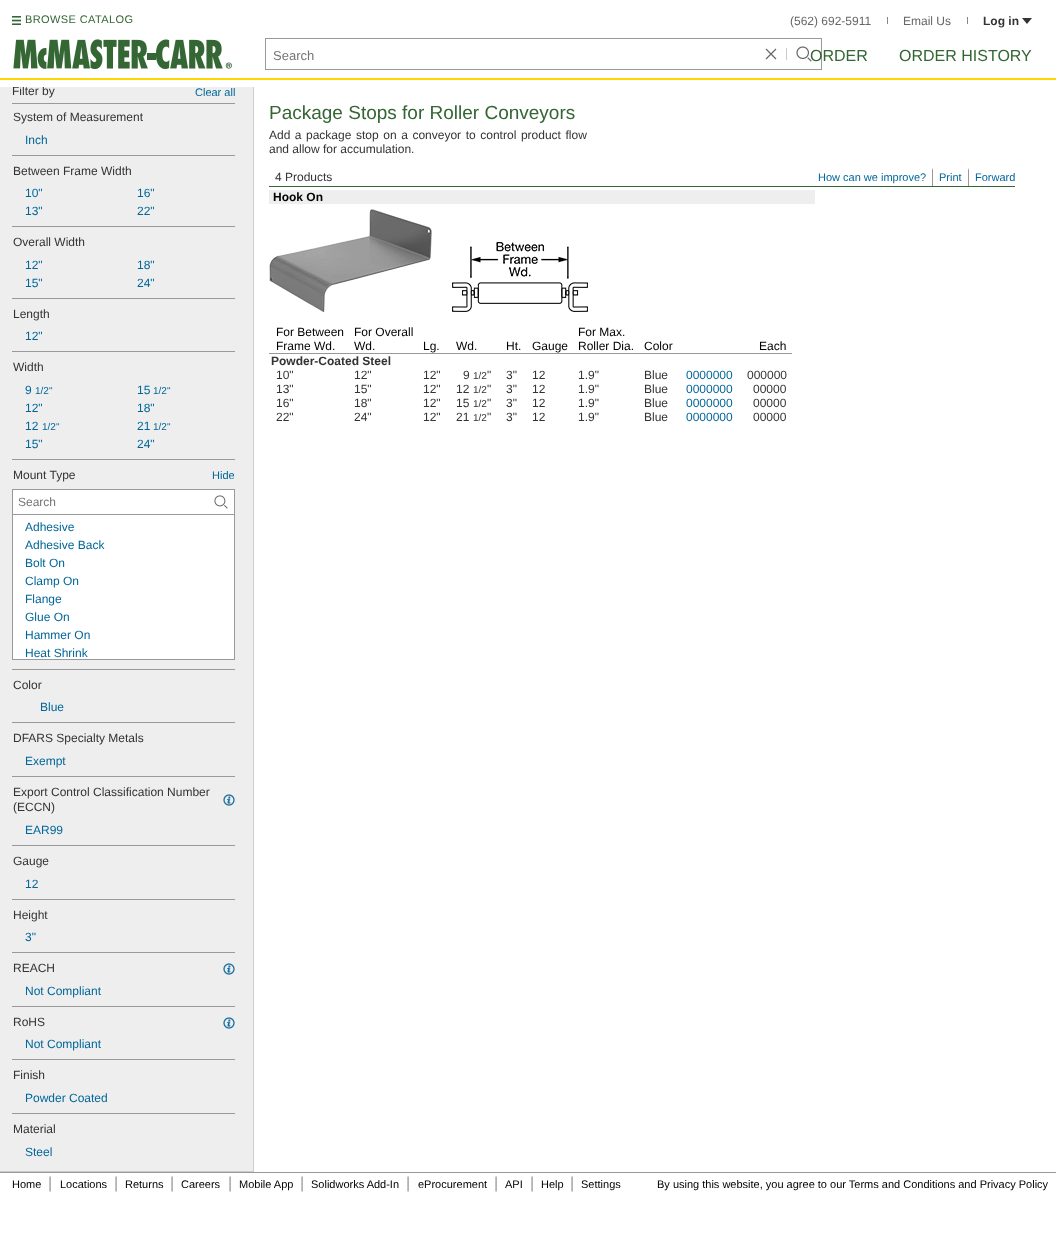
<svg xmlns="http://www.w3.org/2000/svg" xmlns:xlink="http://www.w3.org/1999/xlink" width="1056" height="1258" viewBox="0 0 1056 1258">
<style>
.cls-1{font:11px Liberation Sans;letter-spacing:0.4px;fill:#336633}
.cls-2{font:12px Liberation Sans;fill:#666666}
.cls-3{font:bold 12px Liberation Sans;fill:#333333}
.cls-4{font:13px Liberation Sans;fill:#757575}
.cls-5{font:16px Liberation Sans;fill:#336633}
.cls-6{font:12px Liberation Sans;fill:#333333}
.cls-7{font:11px Liberation Sans;fill:#006699}
.cls-8{font:12px Liberation Sans;fill:#006699}
.cls-9{font:10px Liberation Sans;fill:#006699}
.cls-10{font:12px Liberation Sans;fill:#757575}
.cls-11{font:19px Liberation Sans;fill:#336633}
.cls-12{font:bold 12px Liberation Sans;fill:#000000}
.cls-13{font:12px Liberation Sans;fill:#000000}
.cls-14{font:10px Liberation Sans;fill:#333333}
.cls-15{font:11px Liberation Sans;fill:#000000}
.cls-16{font:16px Liberation Sans;fill:#999999}
</style>
<rect width="100%" height="100%" fill="#ffffff"/>
<rect fill="#fed700" x="0" y="78" width="1056" height="2"/>
<image xlink:href="image0.png" x="12" y="16" width="9" height="9"/>
<rect fill="#878787" x="887" y="17" width="1" height="7"/>
<rect fill="#878787" x="967" y="17" width="1" height="7"/>
<path fill="#333333" d="M1022 18L1027 24L1032 18Z"/>
<image xlink:href="image1.png" x="13" y="39" width="219" height="30"/>
<rect fill="none" stroke="#999999" x="265.5" y="38.5" width="556" height="31"/>
<path fill="none" stroke="#666666" stroke-width="1.2" d="M766 49L776 59M776 49L766 59"/>
<rect fill="#cbcbcb" x="786" y="48" width="1" height="12"/>
<image xlink:href="image2.png" x="796" y="46" width="16" height="16"/>
<rect fill="#eeeeee" x="0" y="87" width="253" height="1084"/>
<rect fill="#cccccc" x="253" y="80" width="1" height="1092"/>
<rect fill="#cccccc" x="0" y="1171" width="254" height="1"/>
<rect fill="#999999" x="12" y="103" width="223" height="1"/>
<rect fill="#999999" x="12" y="155" width="223" height="1"/>
<rect fill="#999999" x="12" y="226" width="223" height="1"/>
<rect fill="#999999" x="12" y="298" width="223" height="1"/>
<rect fill="#999999" x="12" y="351" width="223" height="1"/>
<rect fill="#999999" x="12" y="459" width="223" height="1"/>
<rect fill="#ffffff" stroke="#999999" x="12.5" y="489.5" width="222" height="25"/>
<image xlink:href="image3.png" x="214" y="495" width="14" height="14"/>
<rect fill="#ffffff" x="13" y="515" width="221" height="144"/>
<rect fill="#999999" x="234" y="515" width="1" height="145"/>
<rect fill="#999999" x="12" y="659" width="223" height="1"/>
<rect fill="#999999" x="12" y="515" width="1" height="145"/>
<rect fill="#999999" x="12" y="669" width="223" height="1"/>
<rect fill="#999999" x="12" y="722" width="223" height="1"/>
<rect fill="#999999" x="12" y="776" width="223" height="1"/>
<image xlink:href="image4.png" x="223" y="794" width="12" height="12"/>
<rect fill="#999999" x="12" y="845" width="223" height="1"/>
<rect fill="#999999" x="12" y="899" width="223" height="1"/>
<rect fill="#999999" x="12" y="952" width="223" height="1"/>
<image xlink:href="image4.png" x="223" y="963" width="12" height="12"/>
<rect fill="#999999" x="12" y="1006" width="223" height="1"/>
<image xlink:href="image4.png" x="223" y="1017" width="12" height="12"/>
<rect fill="#999999" x="12" y="1059" width="223" height="1"/>
<rect fill="#999999" x="12" y="1113" width="223" height="1"/>
<rect fill="#eeeeee" x="269" y="190" width="546" height="14"/>
<image xlink:href="image5.png" x="269" y="209" width="163" height="103"/>
<image xlink:href="image6.png" x="452" y="242" width="136" height="70"/>
<rect fill="#999999" x="269" y="353" width="523" height="1"/>
<rect fill="#336633" x="269" y="186" width="754" height="1"/>
<rect fill="#ffffff" x="1015" y="186" width="8" height="1"/>
<path fill="#999999" d="M933 168V186H932V170Z"/>
<path fill="#999999" d="M969 168V186H968V170Z"/>
<rect fill="#999999" x="0" y="1172" width="1056" height="1"/>
<text class="cls-1" x="25" y="23">BROWSE CATALOG</text>
<text class="cls-2" x="790" y="25">(562) 692-5911</text>
<text class="cls-2" x="903" y="25">Email Us</text>
<text class="cls-3" x="983" y="25">Log in</text>
<text class="cls-4" x="273" y="60">Search</text>
<text class="cls-5" x="810" y="61">ORDER</text>
<text class="cls-5" x="899" y="61">ORDER HISTORY</text>
<text class="cls-6" x="12" y="95">Filter by</text>
<rect fill="#ffffff" x="13" y="80" width="241" height="7"/>
<text class="cls-7" x="195" y="96">Clear all</text>
<text class="cls-6" x="13" y="121">System of Measurement</text>
<text class="cls-8" x="25" y="144">Inch</text>
<text class="cls-6" x="13" y="175">Between Frame Width</text>
<text class="cls-8"><tspan x="25" y="197">10"</tspan><tspan x="25" y="215">13"</tspan></text>
<text class="cls-8"><tspan x="137" y="197">16"</tspan><tspan x="137" y="215">22"</tspan></text>
<text class="cls-6" x="13" y="246">Overall Width</text>
<text class="cls-8"><tspan x="25" y="269">12"</tspan><tspan x="25" y="287">15"</tspan></text>
<text class="cls-8"><tspan x="137" y="269">18"</tspan><tspan x="137" y="287">24"</tspan></text>
<text class="cls-6" x="13" y="318">Length</text>
<text class="cls-8" x="25" y="340">12"</text>
<text class="cls-6" x="13" y="371">Width</text>
<text class="cls-8" x="25" y="394">9</text>
<text class="cls-9" x="35" y="394">1/2"</text>
<text class="cls-8"><tspan x="25" y="412">12"</tspan><tspan x="25" y="430">12</tspan></text>
<text class="cls-9" x="42" y="430">1/2"</text>
<text class="cls-8" x="25" y="448">15"</text>
<text class="cls-8" x="137" y="394">15</text>
<text class="cls-9" x="153" y="394">1/2"</text>
<text class="cls-8"><tspan x="137" y="412">18"</tspan><tspan x="137" y="430">21</tspan></text>
<text class="cls-9" x="153" y="430">1/2"</text>
<text class="cls-8" x="137" y="448">24"</text>
<text class="cls-6" x="13" y="479">Mount Type</text>
<text class="cls-7" x="212" y="479">Hide</text>
<text class="cls-10" x="18" y="506">Search</text>
<text class="cls-8"><tspan x="25" y="531">Adhesive</tspan><tspan x="25" y="549">Adhesive Back</tspan><tspan x="25" y="567">Bolt On</tspan><tspan x="25" y="585">Clamp On</tspan><tspan x="25" y="603">Flange</tspan><tspan x="25" y="621">Glue On</tspan><tspan x="25" y="639">Hammer On</tspan><tspan x="25" y="657">Heat Shrink</tspan></text>
<text class="cls-6" x="13" y="689">Color</text>
<text class="cls-8" x="40" y="711">Blue</text>
<text class="cls-6" x="13" y="742">DFARS Specialty Metals</text>
<text class="cls-8" x="25" y="765">Exempt</text>
<text class="cls-6"><tspan x="13" y="796">Export Control Classification Number</tspan><tspan x="13" y="811">(ECCN)</tspan></text>
<text class="cls-8" x="25" y="834">EAR99</text>
<text class="cls-6" x="13" y="865">Gauge</text>
<text class="cls-8" x="25" y="888">12</text>
<text class="cls-6" x="13" y="919">Height</text>
<text class="cls-8" x="25" y="941">3"</text>
<text class="cls-6" x="13" y="972">REACH</text>
<text class="cls-8" x="25" y="995">Not Compliant</text>
<text class="cls-6" x="13" y="1026">RoHS</text>
<text class="cls-8" x="25" y="1048">Not Compliant</text>
<text class="cls-6" x="13" y="1079">Finish</text>
<text class="cls-8" x="25" y="1102">Powder Coated</text>
<text class="cls-6" x="13" y="1133">Material</text>
<text class="cls-8" x="25" y="1156">Steel</text>
<text class="cls-11" x="269" y="119">Package Stops for Roller Conveyors</text>
<text class="cls-6" x="269" y="139" word-spacing="1">Add a</text>
<text class="cls-6" x="306" y="139" word-spacing="1.25">package stop on a conveyor to control product flow</text>
<text class="cls-6" x="269" y="153">and allow for accumulation.</text>
<text class="cls-12" x="273" y="201">Hook On</text>
<text class="cls-13"><tspan x="276" y="336">For Between</tspan><tspan x="276" y="350">Frame Wd.</tspan></text>
<text class="cls-13"><tspan x="354" y="336">For Overall</tspan><tspan x="354" y="350">Wd.</tspan></text>
<text class="cls-13" x="423" y="350">Lg.</text>
<text class="cls-13" x="456" y="350">Wd.</text>
<text class="cls-13" x="506" y="350">Ht.</text>
<text class="cls-13" x="532" y="350">Gauge</text>
<text class="cls-13"><tspan x="578" y="336">For Max.</tspan><tspan x="578" y="350">Roller Dia.</tspan></text>
<text class="cls-13" x="644" y="350">Color</text>
<text class="cls-13" x="759" y="350">Each</text>
<text class="cls-3" x="271" y="365">Powder-Coated Steel</text>
<text class="cls-6" x="276" y="379">10"</text>
<text class="cls-6" x="354" y="379">12"</text>
<text class="cls-6" x="423" y="379">12"</text>
<text class="cls-6" x="463" y="379">9</text>
<text class="cls-14" x="473" y="379">1/2</text>
<text class="cls-6" x="487" y="379">"</text>
<text class="cls-6" x="506" y="379">3"</text>
<text class="cls-6" x="532" y="379">12</text>
<text class="cls-6" x="578" y="379">1.9"</text>
<text class="cls-6" x="644" y="379">Blue</text>
<text class="cls-8" x="686" y="379">0000000</text>
<text class="cls-6" x="747" y="379">000000</text>
<text class="cls-6" x="276" y="393">13"</text>
<text class="cls-6" x="354" y="393">15"</text>
<text class="cls-6" x="423" y="393">12"</text>
<text class="cls-6" x="456" y="393">12</text>
<text class="cls-14" x="473" y="393">1/2</text>
<text class="cls-6" x="487" y="393">"</text>
<text class="cls-6" x="506" y="393">3"</text>
<text class="cls-6" x="532" y="393">12</text>
<text class="cls-6" x="578" y="393">1.9"</text>
<text class="cls-6" x="644" y="393">Blue</text>
<text class="cls-8" x="686" y="393">0000000</text>
<text class="cls-6" x="753" y="393">00000</text>
<text class="cls-6" x="276" y="407">16"</text>
<text class="cls-6" x="354" y="407">18"</text>
<text class="cls-6" x="423" y="407">12"</text>
<text class="cls-6" x="456" y="407">15</text>
<text class="cls-14" x="473" y="407">1/2</text>
<text class="cls-6" x="487" y="407">"</text>
<text class="cls-6" x="506" y="407">3"</text>
<text class="cls-6" x="532" y="407">12</text>
<text class="cls-6" x="578" y="407">1.9"</text>
<text class="cls-6" x="644" y="407">Blue</text>
<text class="cls-8" x="686" y="407">0000000</text>
<text class="cls-6" x="753" y="407">00000</text>
<text class="cls-6" x="276" y="421">22"</text>
<text class="cls-6" x="354" y="421">24"</text>
<text class="cls-6" x="423" y="421">12"</text>
<text class="cls-6" x="456" y="421">21</text>
<text class="cls-14" x="473" y="421">1/2</text>
<text class="cls-6" x="487" y="421">"</text>
<text class="cls-6" x="506" y="421">3"</text>
<text class="cls-6" x="532" y="421">12</text>
<text class="cls-6" x="578" y="421">1.9"</text>
<text class="cls-6" x="644" y="421">Blue</text>
<text class="cls-8" x="686" y="421">0000000</text>
<text class="cls-6" x="753" y="421">00000</text>
<text class="cls-6" x="275" y="181">4 Products</text>
<text class="cls-7" x="818" y="181">How can we improve?</text>
<text class="cls-7" x="939" y="181">Print</text>
<text class="cls-7" x="975" y="181">Forward</text>
<text class="cls-15" x="12" y="1188">Home</text>
<text class="cls-16" x="48" y="1188">|</text>
<text class="cls-15" x="60" y="1188">Locations</text>
<text class="cls-16" x="114" y="1188">|</text>
<text class="cls-15" x="125" y="1188">Returns</text>
<text class="cls-16" x="170" y="1188">|</text>
<text class="cls-15" x="181" y="1188">Careers</text>
<text class="cls-16" x="228" y="1188">|</text>
<text class="cls-15" x="239" y="1188">Mobile App</text>
<text class="cls-16" x="300" y="1188">|</text>
<text class="cls-15" x="311" y="1188">Solidworks Add-In</text>
<text class="cls-16" x="406" y="1188">|</text>
<text class="cls-15" x="418" y="1188">eProcurement</text>
<text class="cls-16" x="494" y="1188">|</text>
<text class="cls-15" x="505" y="1188">API</text>
<text class="cls-16" x="530" y="1188">|</text>
<text class="cls-15" x="541" y="1188">Help</text>
<text class="cls-16" x="570" y="1188">|</text>
<text class="cls-15" x="581" y="1188">Settings</text>
<text class="cls-15" x="657" y="1188">By using this website, you agree to our Terms and Conditions and Privacy Policy</text>
</svg>
